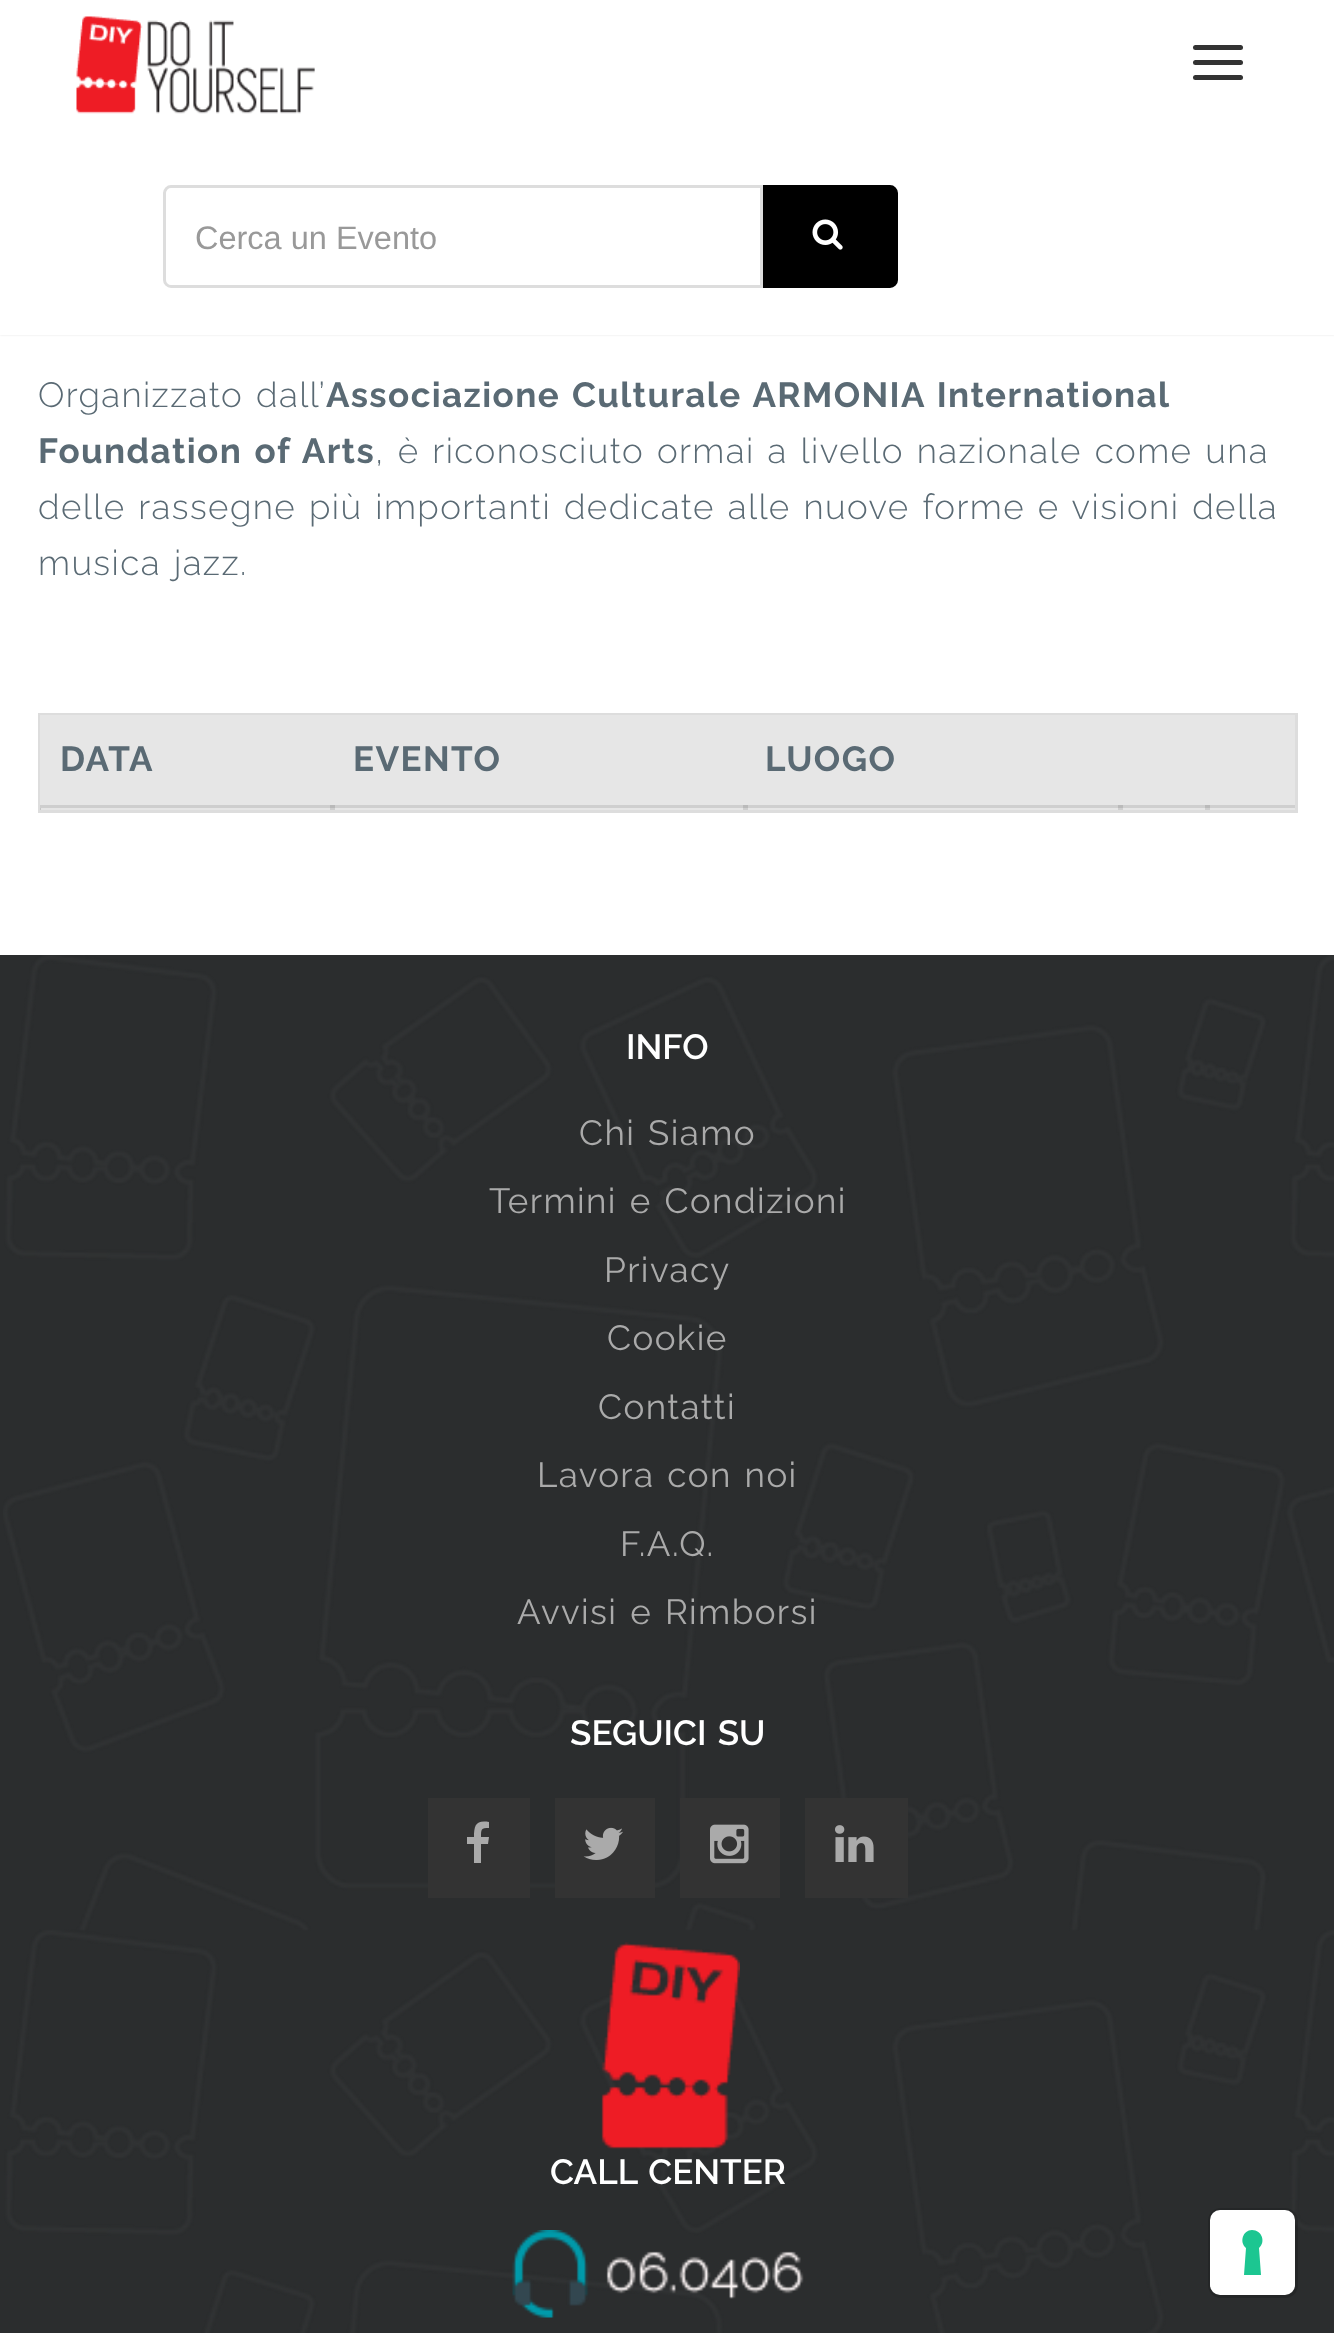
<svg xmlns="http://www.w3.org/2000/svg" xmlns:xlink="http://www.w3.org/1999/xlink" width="1334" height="2333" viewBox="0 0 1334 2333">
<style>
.cls-1{font:32.5px Liberation Sans;fill:#999999}
.cls-2{font:300 35px Raleway;letter-spacing:1.4px;fill:#5a6a74}
.cls-3{font:bold 35px Raleway;letter-spacing:1.4px;fill:#5a6a74}
.cls-4{font:600 35px Raleway;fill:#ffffff}
.cls-5{font:35px Raleway;letter-spacing:1.4px;fill:#aaaaaa}
</style>
<rect width="100%" height="100%" fill="#ffffff"/>
<rect fill="#e6e6e6" x="330" y="808" width="965" height="2"/>
<rect fill="#cfcfcf" x="743" y="808" width="5" height="2"/>
<rect fill="#cfcfcf" x="1118" y="808" width="5" height="2"/>
<rect fill="#cfcfcf" x="1205" y="808" width="5" height="2"/>
<rect fill="#000000" fill-opacity="0.1" filter="blur(1px)" x="0" y="0" width="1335" height="335"/>
<rect fill="#ffffff" x="0" y="0" width="1334" height="335"/>
<image xlink:href="image0.png" x="76" y="16" width="239" height="98"/>
<rect fill="#333333" x="1193" y="45" width="50" height="5" rx="2.5"/>
<rect fill="#333333" x="1193" y="60" width="50" height="5" rx="2.5"/>
<rect fill="#333333" x="1193" y="75" width="50" height="5" rx="2.5"/>
<path fill="#000000" stroke="#000000" stroke-width="3" d="M761.5 186.5H890C893.5 186.5 896.5 189.5 896.5 193V280C896.5 283.5 893.5 286.5 890 286.5H761.5Z"/>
<path fill="#ffffff" stroke="#dddddd" stroke-width="3" d="M171 186.5H761.5V286.5H171C167.5 286.5 164.5 283.5 164.5 280V193C164.5 189.5 167.5 186.5 171 186.5Z"/>
<image xlink:href="image1.png" x="812" y="219" width="31" height="31"/>
<rect fill="none" stroke="#dddddd" stroke-width="3" x="39.5" y="714.5" width="1257" height="97"/>
<rect fill="#e6e6e6" x="40" y="715" width="1255" height="93"/>
<rect fill="#cfcfcf" x="330" y="805" width="965" height="3"/>
<rect fill="#bababa" x="743" y="805" width="5" height="3"/>
<rect fill="#bababa" x="1118" y="805" width="5" height="3"/>
<rect fill="#bababa" x="1205" y="805" width="5" height="3"/>
<rect fill="#000000" fill-opacity="0.1" x="40" y="805" width="295" height="5"/>
<rect fill="#2b2d2e" x="0" y="955" width="1334" height="1378"/>
<image xlink:href="image2.png" x="3" y="955" width="1331" height="1378"/>
<rect fill="#333333" x="428" y="1798" width="102" height="100"/>
<path fill="#aaaaaa" d="M467 1844V1837H474C474 1825 476 1820 489 1822V1828C481 1828 481 1829 481 1837H489L488 1844H481V1863H474V1844Z"/>
<rect fill="#333333" x="555" y="1798" width="100" height="100"/>
<image xlink:href="image3.png" x="583" y="1827" width="40" height="33"/>
<rect fill="#333333" x="680" y="1798" width="100" height="100"/>
<image xlink:href="image4.png" x="710" y="1824" width="39" height="40"/>
<rect fill="#333333" x="805" y="1798" width="103" height="100"/>
<image xlink:href="image5.png" x="835" y="1825" width="39" height="37"/>
<image xlink:href="image6.png" x="601" y="1942" width="139" height="207"/>
<image xlink:href="image7.png" x="512" y="2230" width="292" height="88"/>
<rect fill="none" stroke="#000000" stroke-opacity="0.15" stroke-width="3" x="1209.5" y="2209.5" width="87" height="87" rx="11.5"/>
<rect fill="#ffffff" x="1210" y="2210" width="85" height="85" rx="10"/>
<path fill="#1cc691" fill-rule="evenodd" d="M1252 2230C1262 2230 1266 2242 1259 2248L1261 2275H1244L1246 2248C1239 2242 1243 2230 1252 2230Z"/>
<text class="cls-1" x="195" y="249">Cerca un Evento</text>
<text class="cls-2" x="38" y="407" word-spacing="2.5">Organizzato dall’</text>
<text class="cls-3" x="326" y="407" word-spacing="2">Associazione Culturale ARMONIA International</text>
<text class="cls-3" x="38" y="463" word-spacing="2.5">Foundation of Arts</text>
<text class="cls-2" x="375" y="463" word-spacing="2.5">, è riconosciuto ormai a livello nazionale come una</text>
<text class="cls-2"><tspan x="38" y="519" word-spacing="2.5">delle rassegne più importanti dedicate alle nuove forme e visioni della</tspan><tspan x="38" y="575" word-spacing="2.5">musica jazz.</tspan></text>
<text class="cls-3" x="60" y="771">DATA</text>
<text class="cls-3" x="353" y="771">EVENTO</text>
<text class="cls-3" x="765" y="771">LUOGO</text>
<text class="cls-4" x="626" y="1059">INFO</text>
<text class="cls-5" x="579" y="1145" word-spacing="2.5">Chi Siamo</text>
<text class="cls-5" x="489" y="1213" word-spacing="2.5">Termini e Condizioni</text>
<text class="cls-5" x="604" y="1282">Privacy</text>
<text class="cls-5" x="607" y="1350">Cookie</text>
<text class="cls-5" x="598" y="1419">Contatti</text>
<text class="cls-5" x="537" y="1487" word-spacing="2.5">Lavora con noi</text>
<text class="cls-5" x="620" y="1556">F.A.Q.</text>
<text class="cls-5" x="517" y="1624" word-spacing="2.5">Avvisi e Rimborsi</text>
<text class="cls-4" x="570" y="1745" word-spacing="2.5">SEGUICI SU</text>
<text class="cls-4" x="550" y="2184" word-spacing="2.5">CALL CENTER</text>
</svg>
